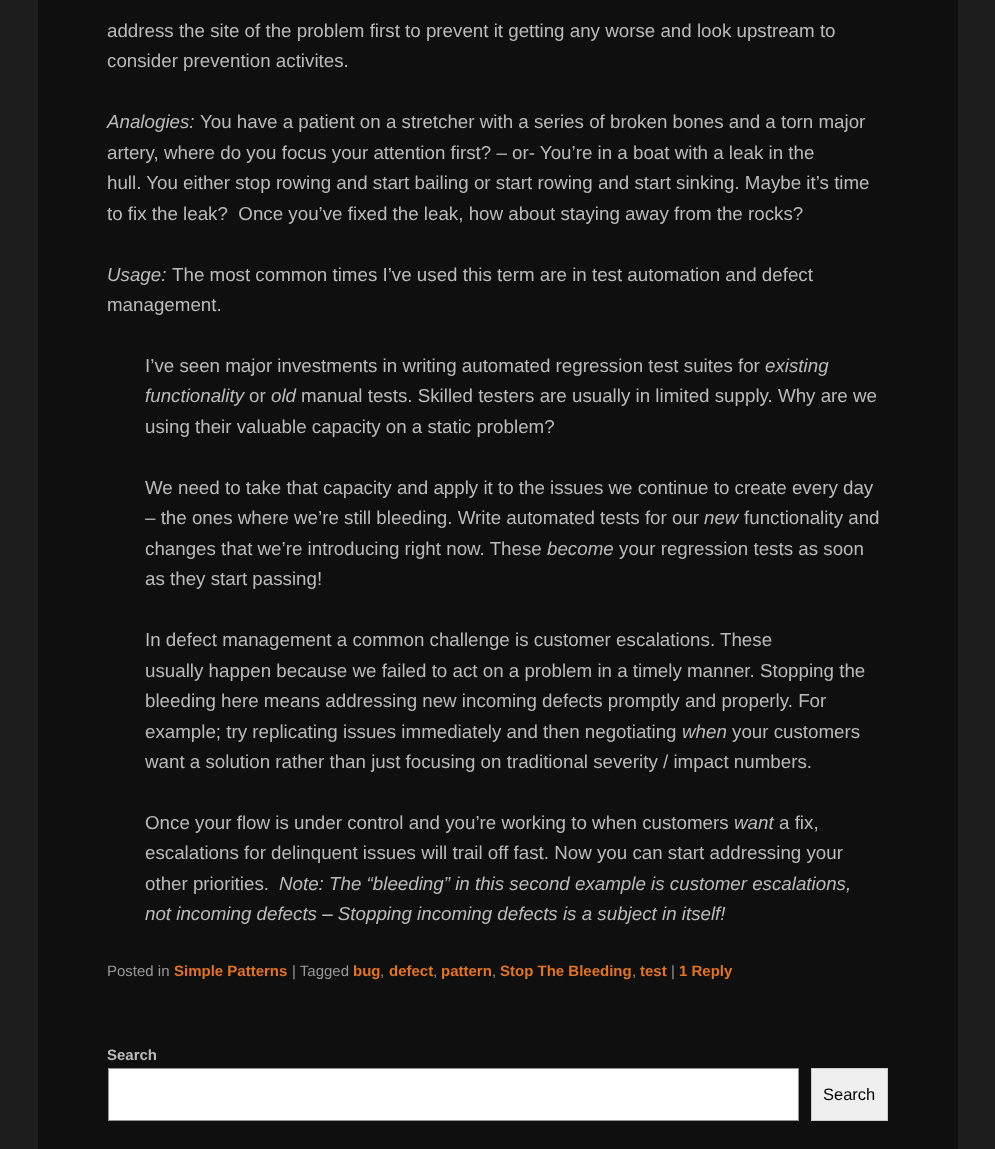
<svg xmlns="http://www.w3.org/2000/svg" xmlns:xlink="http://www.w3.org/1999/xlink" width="995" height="1149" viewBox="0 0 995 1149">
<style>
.cls-1{font:18.75px Liberation Sans;fill:#bbbbbb}
.cls-2{font:italic 18.75px Liberation Sans;fill:#bbbbbb}
.cls-3{font:15px Liberation Sans;fill:#999999}
.cls-4{font:bold 15px Liberation Sans;fill:#e4741f}
.cls-5{font:bold 15px Liberation Sans;fill:#bbbbbb}
.cls-6{font:16.5px Liberation Sans;fill:#000000}
</style>
<rect width="100%" height="100%" fill="#1d1d1d"/>
<rect fill="#0f0f0f" x="38" y="0" width="920" height="1149"/>
<rect fill="#ffffff" stroke="#949494" x="108.5" y="1068.5" width="690" height="52"/>
<rect fill="#efefef" stroke="#cccccc" x="811.5" y="1068.5" width="76" height="52"/>
<text class="cls-1"><tspan x="107" y="37">address the site of the problem first to prevent it getting any worse and look upstream to</tspan><tspan x="107" y="67">consider prevention activites.</tspan></text>
<text class="cls-2" x="107" y="128">Analogies:</text>
<text class="cls-1" x="200" y="128">You have a patient on a stretcher with a series of broken bones and a torn major</text>
<text class="cls-1" xml:space="preserve"><tspan x="107" y="159">artery, where do you focus your attention first? – or- You’re in a boat with a leak in the</tspan><tspan x="107" y="189">hull. You either stop rowing and start bailing or start rowing and start sinking. Maybe it’s time</tspan><tspan x="107" y="220">to fix the leak?  Once you’ve fixed the leak, how about staying away from the rocks?</tspan></text>
<text class="cls-2" x="107" y="281">Usage:</text>
<text class="cls-1" x="172" y="281">The most common times I’ve used this term are in test automation and defect</text>
<text class="cls-1" x="107" y="311">management.</text>
<text class="cls-1" x="145" y="372">I’ve seen major investments in writing automated regression test suites for</text>
<text class="cls-2" x="765" y="372">existing</text>
<text class="cls-2" x="145" y="402">functionality</text>
<text class="cls-1" x="249" y="402">or</text>
<text class="cls-2" x="271" y="402">old</text>
<text class="cls-1" x="301" y="402">manual tests. Skilled testers are usually in limited supply. Why are we</text>
<text class="cls-1" x="145" y="433">using their valuable capacity on a static problem?</text>
<text class="cls-1"><tspan x="145" y="494">We need to take that capacity and apply it to the issues we continue to create every day</tspan><tspan x="145" y="524">– the ones where we’re still bleeding. Write automated tests for our</tspan></text>
<text class="cls-2" x="704" y="524">new</text>
<text class="cls-1" x="744" y="524">functionality and</text>
<text class="cls-1" x="145" y="555">changes that we’re introducing right now. These</text>
<text class="cls-2" x="547" y="555">become</text>
<text class="cls-1" x="619" y="555">your regression tests as soon</text>
<text class="cls-1" x="145" y="585">as they start passing!</text>
<text class="cls-1"><tspan x="145" y="646">In defect management a common challenge is customer escalations. These</tspan><tspan x="145" y="677">usually happen because we failed to act on a problem in a timely manner. Stopping the</tspan><tspan x="145" y="707">bleeding here means addressing new incoming defects promptly and properly. For</tspan><tspan x="145" y="738">example; try replicating issues immediately and then negotiating</tspan></text>
<text class="cls-2" x="682" y="738">when</text>
<text class="cls-1" x="732" y="738">your customers</text>
<text class="cls-1" x="145" y="768">want a solution rather than just focusing on traditional severity / impact numbers.</text>
<text class="cls-1" x="145" y="829">Once your flow is under control and you’re working to when customers</text>
<text class="cls-2" x="734" y="829">want</text>
<text class="cls-1" x="779" y="829">a fix,</text>
<text class="cls-1"><tspan x="145" y="859">escalations for delinquent issues will trail off fast. Now you can start addressing your</tspan><tspan x="145" y="890">other priorities.</tspan></text>
<text class="cls-2" x="279" y="890">Note: The “bleeding” in this second example is customer escalations,</text>
<text class="cls-2" x="145" y="920">not incoming defects – Stopping incoming defects is a subject in itself!</text>
<text class="cls-3" x="107" y="976">Posted in</text>
<text class="cls-4" x="174" y="976">Simple Patterns</text>
<text class="cls-3" x="292" y="976">| Tagged</text>
<text class="cls-4" x="353" y="976">bug</text>
<text class="cls-3" x="380" y="976">,</text>
<text class="cls-4" x="389" y="976">defect</text>
<text class="cls-3" x="433" y="976">,</text>
<text class="cls-4" x="441" y="976">pattern</text>
<text class="cls-3" x="492" y="976">,</text>
<text class="cls-4" x="500" y="976">Stop The Bleeding</text>
<text class="cls-3" x="632" y="976">,</text>
<text class="cls-4" x="640" y="976">test</text>
<text class="cls-3" x="671" y="976">|</text>
<text class="cls-4" x="679" y="976">1 Reply</text>
<text class="cls-5" x="107" y="1060">Search</text>
<text class="cls-6" x="823" y="1100">Search</text>
</svg>
